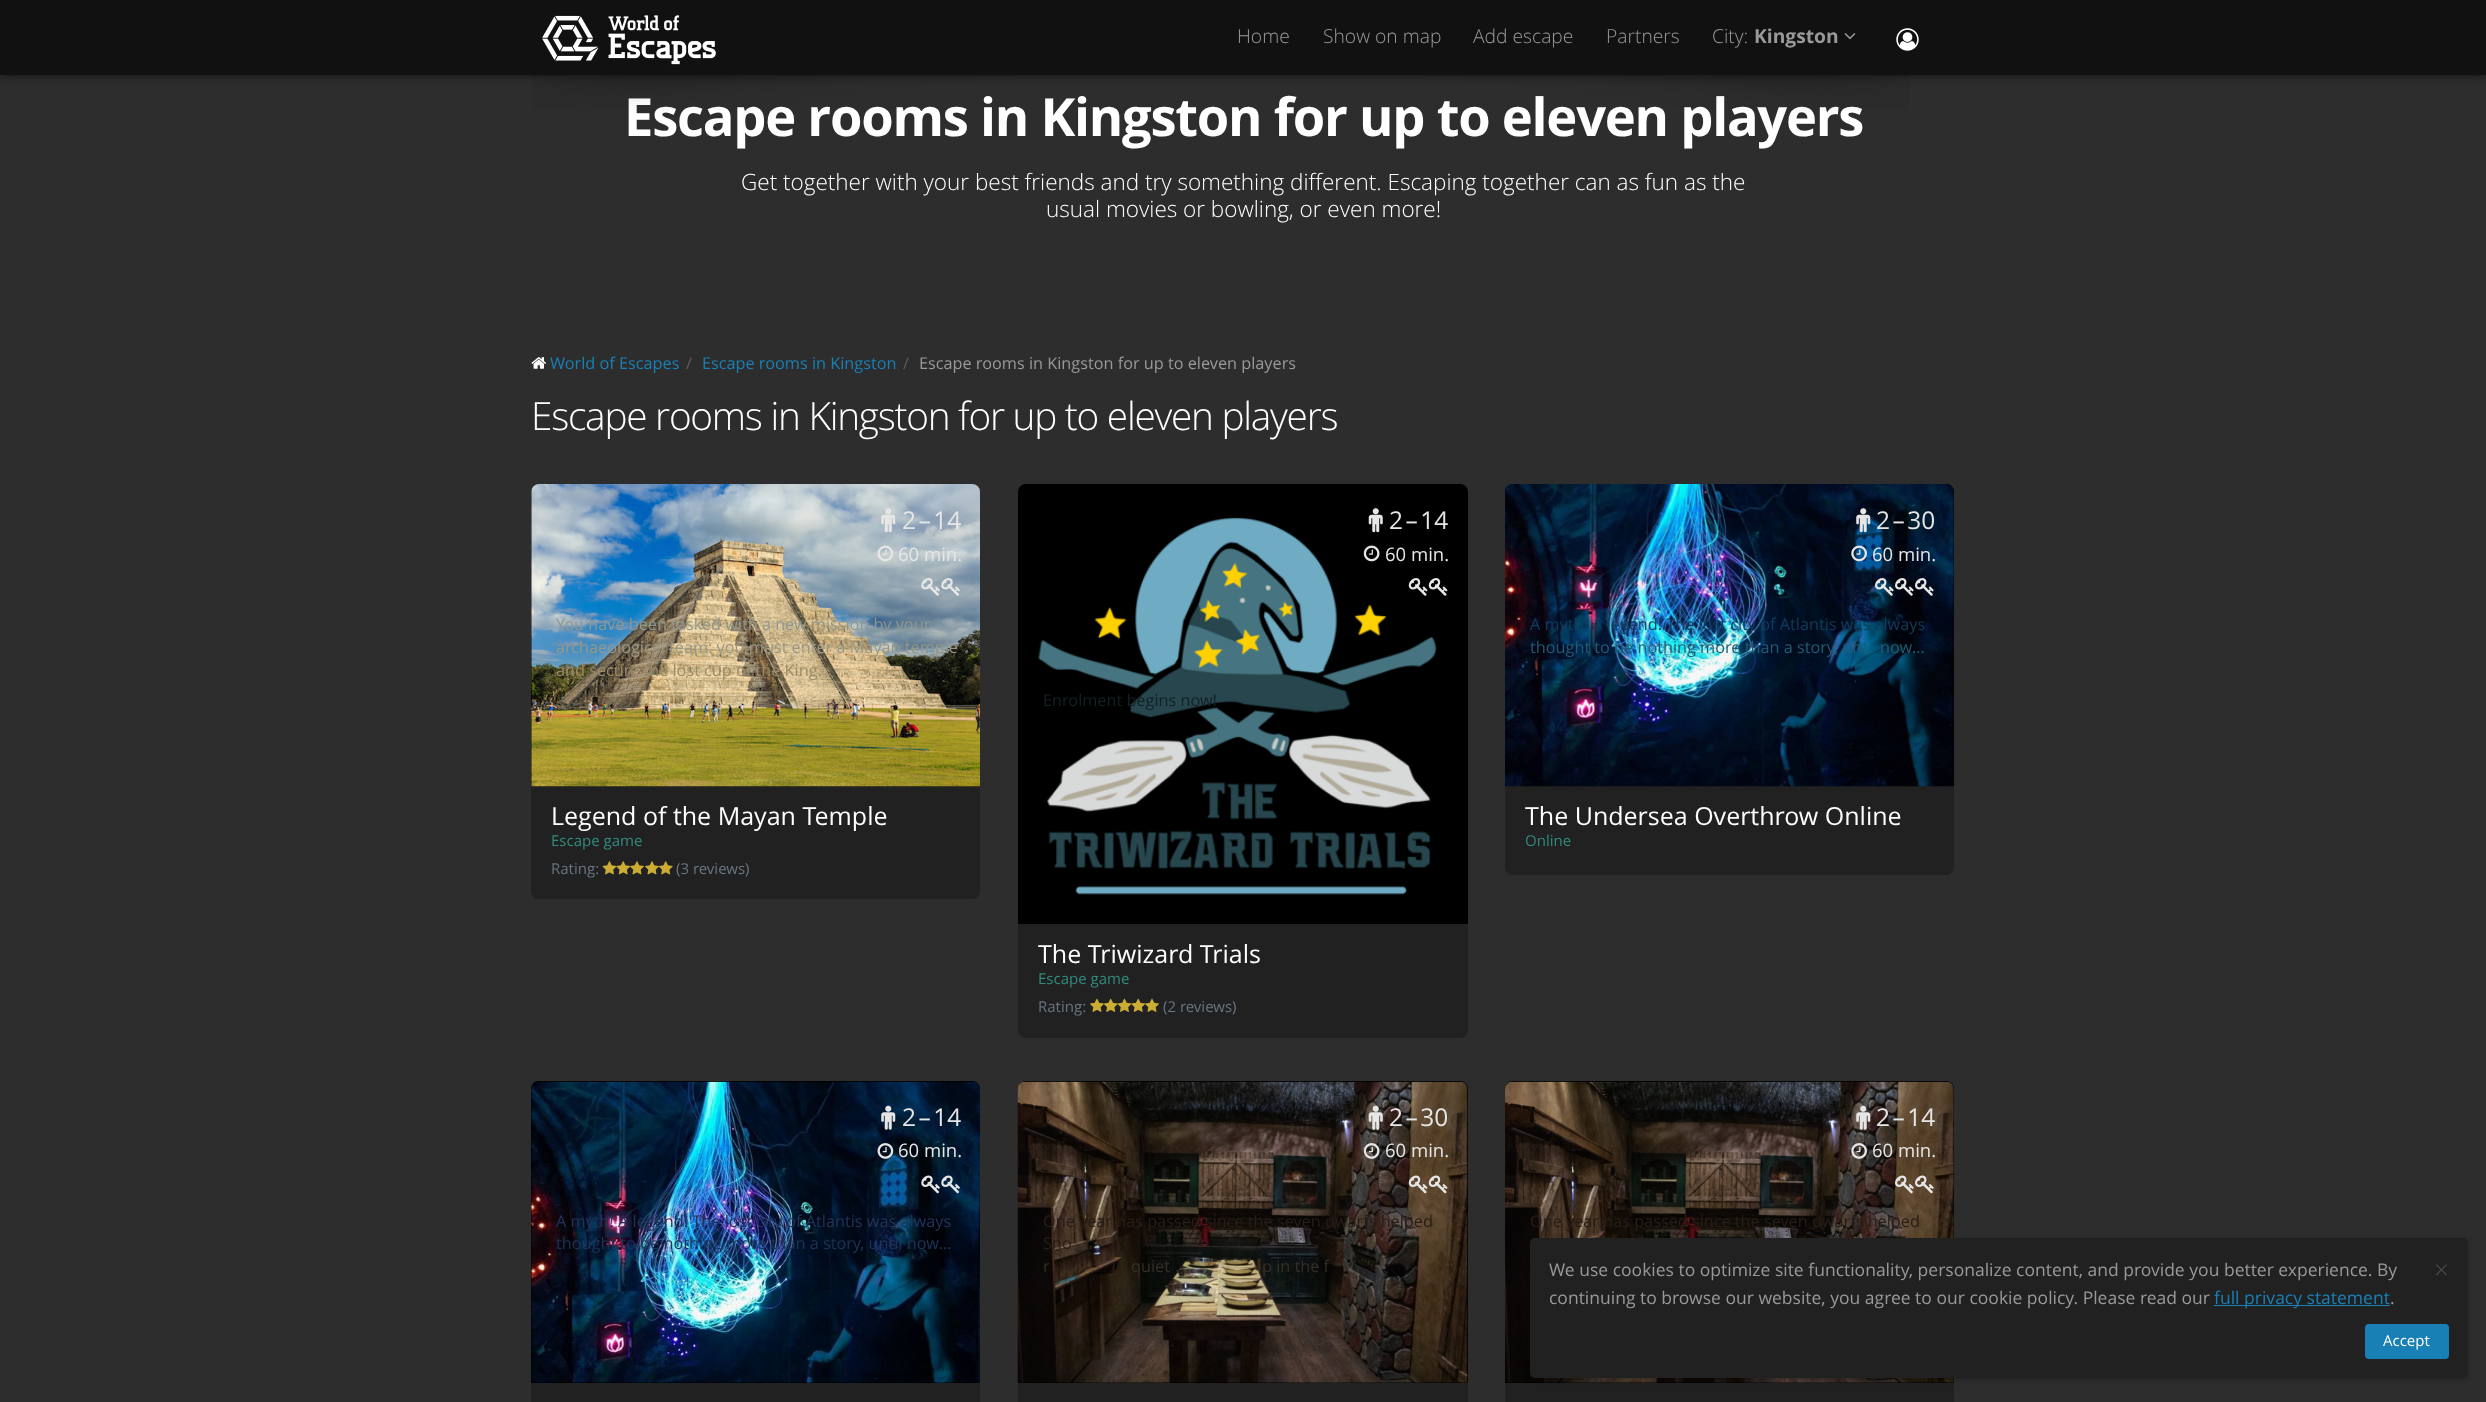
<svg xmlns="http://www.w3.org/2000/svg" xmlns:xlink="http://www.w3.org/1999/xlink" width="2486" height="1402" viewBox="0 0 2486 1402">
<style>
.cls-1{font:bold 52.5px Open Sans;letter-spacing:-1.25px;fill:#ffffff}
.cls-2{font:bold 19.25px Open Sans;fill:#999999}
.cls-3{font:300 19.25px Open Sans;fill:#999999}
.cls-4{font:300 22.5px Open Sans;fill:#ffffff}
.cls-5{font:16.25px Open Sans;fill:#1980b6}
.cls-6{font:16.25px Open Sans;fill:#5e5e5e}
.cls-7{font:16.25px Open Sans;fill:#999999}
.cls-8{font:300 38.75px Open Sans;letter-spacing:-1.25px;fill:#ffffff}
.cls-9{font:24.5px Open Sans;fill:#e6e6e6}
.cls-10{font:18.5px Open Sans;fill:#e6e6e6}
.cls-11{font:16.25px Open Sans;fill:#90978f}
.cls-12{font:16.25px Open Sans;fill:#979788}
.cls-13{font:16.25px Open Sans;fill:#9b8b68}
.cls-14{font:25px Open Sans;fill:#ffffff}
.cls-15{font:15px Open Sans;fill:#318c7d}
.cls-16{font:15px Open Sans;fill:#697580}
.cls-17{font:16.25px Open Sans;fill:#132225}
.cls-18{font:16.25px Open Sans;fill:#113c5d}
.cls-19{font:16.25px Open Sans;fill:#225a73}
.cls-20{font:16.25px Open Sans;fill:#223257}
.cls-21{font:16.25px Open Sans;fill:#1b3457}
.cls-22{font:16.25px Open Sans;fill:#271e17}
.cls-23{font:16.25px Open Sans;fill:#352f23}
.cls-24{font:17.5px Open Sans;fill:#999999}
.cls-25{font:17.5px Open Sans;fill:#1980b6}
.cls-26{font:300 26px Open Sans;fill:#4d4d4d}
.cls-27{font:15px Open Sans;fill:#ffffff}
</style>
<rect width="100%" height="100%" fill="#2d2d2d"/>
<image xlink:href="image4.png" x="531" y="357" width="15" height="12"/>
<path fill="#000000" d="M539 484H972C976.5 484 980 487.5 980 492V786H531V492C531 487.5 534.5 484 539 484Z"/>
<path fill="#212121" d="M531 786H980V891C980 895.5 976.5 899 972 899H539C534.5 899 531 895.5 531 891Z"/>
<image xlink:href="image5.png" x="531" y="484" width="449" height="303"/>
<image xlink:href="image6.png" x="881" y="508" width="15" height="25"/>
<image xlink:href="image7.png" x="877" y="545" width="17" height="17"/>
<image xlink:href="image8.png" x="921" y="578" width="19" height="18"/>
<image xlink:href="image9.png" x="941" y="578" width="19" height="18"/>
<image xlink:href="image10.png" x="602" y="861" width="15" height="14"/>
<image xlink:href="image11.png" x="616" y="861" width="15" height="14"/>
<image xlink:href="image12.png" x="630" y="861" width="14" height="14"/>
<image xlink:href="image13.png" x="645" y="861" width="14" height="14"/>
<image xlink:href="image14.png" x="658" y="861" width="15" height="14"/>
<path fill="#000000" d="M1026 484H1460C1464.5 484 1468 487.5 1468 492V924H1018V492C1018 487.5 1021.5 484 1026 484Z"/>
<image xlink:href="image18.png" x="1038" y="517" width="399" height="378"/>
<image xlink:href="image15.png" x="1368" y="508" width="15" height="25"/>
<image xlink:href="image16.png" x="1363" y="545" width="17" height="17"/>
<image xlink:href="image17.png" x="1408" y="578" width="20" height="18"/>
<image xlink:href="image17.png" x="1428" y="578" width="20" height="18"/>
<path fill="#212121" d="M1018 924H1468V1030C1468 1034.5 1464.5 1038 1460 1038H1026C1021.5 1038 1018 1034.5 1018 1030Z"/>
<image xlink:href="image19.png" x="1090" y="998" width="14" height="14"/>
<image xlink:href="image20.png" x="1103" y="998" width="15" height="14"/>
<image xlink:href="image21.png" x="1117" y="998" width="15" height="14"/>
<image xlink:href="image22.png" x="1131" y="998" width="15" height="14"/>
<image xlink:href="image23.png" x="1145" y="998" width="14" height="14"/>
<path fill="#000000" d="M1513 484H1946C1950.5 484 1954 487.5 1954 492V786H1505V492C1505 487.5 1508.5 484 1513 484Z"/>
<path fill="#212121" d="M1505 786H1954V867C1954 871.5 1950.5 875 1946 875H1513C1508.5 875 1505 871.5 1505 867Z"/>
<image xlink:href="image24.png" x="1505" y="484" width="449" height="303"/>
<image xlink:href="image25.png" x="1856" y="508" width="15" height="25"/>
<image xlink:href="image26.png" x="1851" y="545" width="16" height="17"/>
<image xlink:href="image27.png" x="1875" y="578" width="19" height="18"/>
<image xlink:href="image28.png" x="1895" y="578" width="19" height="18"/>
<image xlink:href="image29.png" x="1915" y="578" width="19" height="18"/>
<path fill="#000000" d="M539 1081H972C976.5 1081 980 1084.5 980 1089V1383H531V1089C531 1084.5 534.5 1081 539 1081Z"/>
<image xlink:href="image30.png" x="531" y="1081" width="449" height="302"/>
<image xlink:href="image31.png" x="881" y="1105" width="15" height="25"/>
<image xlink:href="image32.png" x="877" y="1143" width="17" height="16"/>
<image xlink:href="image33.png" x="921" y="1175" width="19" height="19"/>
<image xlink:href="image34.png" x="941" y="1175" width="19" height="19"/>
<rect fill="#212121" x="531" y="1383" width="449" height="19"/>
<path fill="#000000" d="M1026 1081H1460C1464.5 1081 1468 1084.5 1468 1089V1383H1018V1089C1018 1084.5 1021.5 1081 1026 1081Z"/>
<image xlink:href="image35.png" x="1017" y="1081" width="451" height="302"/>
<image xlink:href="image36.png" x="1368" y="1105" width="15" height="25"/>
<image xlink:href="image37.png" x="1363" y="1143" width="17" height="16"/>
<image xlink:href="image38.png" x="1408" y="1175" width="20" height="19"/>
<image xlink:href="image39.png" x="1428" y="1175" width="20" height="19"/>
<rect fill="#212121" x="1018" y="1383" width="450" height="19"/>
<path fill="#000000" d="M1513 1081H1946C1950.5 1081 1954 1084.5 1954 1089V1383H1505V1089C1505 1084.5 1508.5 1081 1513 1081Z"/>
<image xlink:href="image40.png" x="1505" y="1081" width="449" height="302"/>
<image xlink:href="image41.png" x="1856" y="1105" width="15" height="25"/>
<image xlink:href="image42.png" x="1851" y="1143" width="16" height="16"/>
<image xlink:href="image43.png" x="1895" y="1175" width="19" height="19"/>
<image xlink:href="image44.png" x="1915" y="1175" width="19" height="19"/>
<rect fill="#212121" x="1505" y="1383" width="449" height="19"/>
<rect fill="#000000" fill-opacity="0.2" filter="blur(2px)" x="1530" y="1240" width="938" height="140" rx="5"/>
<rect fill="#212121" x="1530" y="1238" width="938" height="140" rx="5"/>
<rect fill="#1980b6" x="2214" y="1305" width="176" height="1"/>
<rect fill="#1980b6" x="2365" y="1324" width="84" height="35" rx="4"/>
<text class="cls-1" x="624" y="136">Escape rooms in Kingston for up to eleven players</text>
<image xlink:href="image3.png" x="532" y="75" width="1378" height="36"/>
<rect fill="#111111" filter="blur(5px)" x="0" y="0" width="2486" height="75"/>
<rect fill="#111111" x="0" y="0" width="2486" height="75"/>
<image xlink:href="image2.png" x="1896" y="28" width="23" height="23"/>
<image xlink:href="image1.png" x="1844" y="33" width="12" height="7"/>
<text class="cls-2" x="1754" y="43">Kingston</text>
<text class="cls-3" x="1712" y="43">City:</text>
<text class="cls-3" x="1606" y="43">Partners</text>
<text class="cls-3" x="1473" y="43">Add escape</text>
<text class="cls-3" x="1323" y="43">Show on map</text>
<text class="cls-3" x="1237" y="43">Home</text>
<image xlink:href="image0.png" x="542" y="15" width="174" height="50"/>
<text class="cls-4" x="741" y="190">Get together with your best friends and try something different. Escaping together can as fun as the</text>
<text class="cls-4" x="1046" y="217">usual movies or bowling, or even more!</text>
<text class="cls-5" x="550" y="369">World of Escapes</text>
<text class="cls-6" x="686" y="369">/</text>
<text class="cls-5" x="702" y="369">Escape rooms in Kingston</text>
<text class="cls-6" x="903" y="369">/</text>
<text class="cls-7" x="919" y="369">Escape rooms in Kingston for up to eleven players</text>
<text class="cls-8" x="531" y="430">Escape rooms in Kingston for up to eleven players</text>
<text class="cls-9" x="902" y="529">2 – 14</text>
<text class="cls-10" x="898" y="561">60 min.</text>
<text class="cls-11" x="556" y="630">You have been tasked with a new mission by your</text>
<text class="cls-12" x="556" y="653">archaeological team: you must enter a Mayan temple</text>
<text class="cls-13" x="556" y="676">and secure the lost cup of the King.</text>
<text class="cls-14" x="551" y="825">Legend of the Mayan Temple</text>
<text class="cls-15" x="551" y="846">Escape game</text>
<text class="cls-16" x="551" y="874">Rating:</text>
<text class="cls-16" x="676" y="874">(3 reviews)</text>
<text class="cls-9" x="1389" y="529">2 – 14</text>
<text class="cls-10" x="1385" y="561">60 min.</text>
<text class="cls-17" x="1043" y="706">Enrolment begins now!</text>
<text class="cls-14" x="1038" y="963">The Triwizard Trials</text>
<text class="cls-15" x="1038" y="984">Escape game</text>
<text class="cls-16" x="1038" y="1012">Rating:</text>
<text class="cls-16" x="1163" y="1012">(2 reviews)</text>
<text class="cls-9" x="1876" y="529">2 – 30</text>
<text class="cls-10" x="1872" y="561">60 min.</text>
<text class="cls-18" x="1530" y="630">A myth! A legend! The lost city of Atlantis was always</text>
<text class="cls-19" x="1530" y="653">thought to be nothing more than a story, unt</text>
<text class="cls-19" x="1880" y="653">now…</text>
<text class="cls-14" x="1525" y="825">The Undersea Overthrow Online</text>
<text class="cls-15" x="1525" y="846">Online</text>
<text class="cls-9" x="902" y="1126">2 – 14</text>
<text class="cls-10" x="898" y="1157">60 min.</text>
<text class="cls-20" x="556" y="1227">A myth! A legend! The lost city of Atlantis was always</text>
<text class="cls-21" x="556" y="1249">thought to be nothing more than a story, until now…</text>
<text class="cls-9" x="1389" y="1126">2 – 30</text>
<text class="cls-10" x="1385" y="1157">60 min.</text>
<text class="cls-22"><tspan x="1043" y="1227">One year has passed since the seven dwarfs helped</tspan><tspan x="1043" y="1249">Sno</tspan></text>
<text class="cls-23" x="1043" y="1272">r</text>
<text class="cls-23" x="1131" y="1272">quiet</text>
<text class="cls-23" x="1262" y="1272">p in the f</text>
<text class="cls-9" x="1876" y="1126">2 – 14</text>
<text class="cls-10" x="1872" y="1157">60 min.</text>
<text class="cls-22" x="1530" y="1227">One year has passed since the seven dwarfs helped</text>
<text class="cls-24"><tspan x="1549" y="1276">We use cookies to optimize site functionality, personalize content, and provide you better experience. By</tspan><tspan x="1549" y="1304">continuing to browse our website, you agree to our cookie policy. Please read our</tspan></text>
<text class="cls-25" x="2214" y="1304">full privacy statement</text>
<text class="cls-24" x="2390" y="1304">.</text>
<text class="cls-26" x="2434" y="1279">×</text>
<text class="cls-27" x="2383" y="1346">Accept</text>
</svg>
